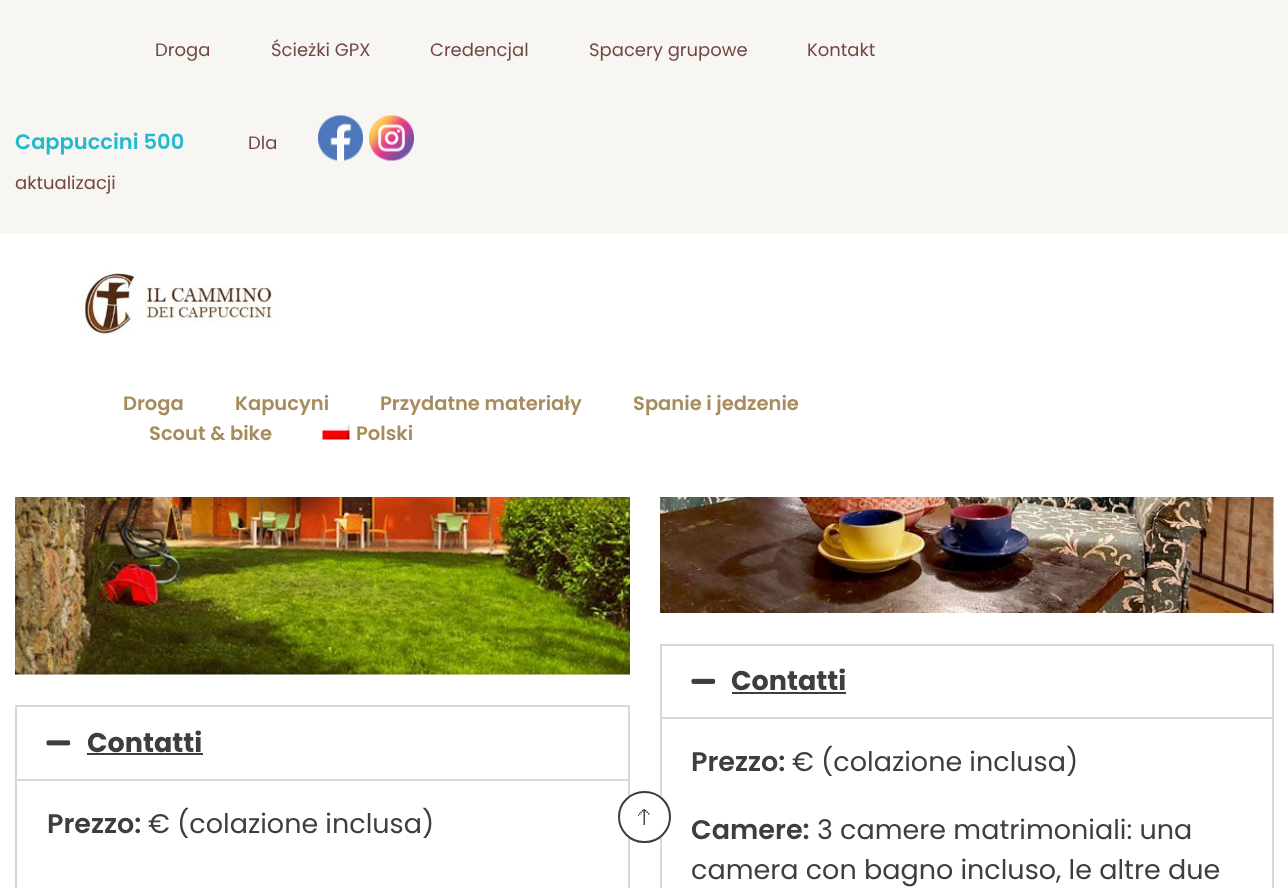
<svg xmlns="http://www.w3.org/2000/svg" xmlns:xlink="http://www.w3.org/1999/xlink" width="1288" height="888" viewBox="0 0 1288 888">
<style>
.cls-1{font:18px Poppins;fill:#734743}
.cls-2{font:600 21px Poppins;fill:#23b9ce}
.cls-3{font:600 19.5px Poppins;fill:#a78d5e}
.cls-4{font:bold 27px Poppins;fill:#3e3e3e}
.cls-5{font:600 27px Poppins;fill:#3e3e3e}
.cls-6{font:27px Poppins;fill:#3e3e3e}
</style>
<rect width="100%" height="100%" fill="#ffffff"/>
<rect fill="#f8f6f2" x="0" y="0" width="1288" height="234"/>
<image xlink:href="image0.png" x="318" y="115" width="45" height="46"/>
<image xlink:href="image1.png" x="369" y="115" width="45" height="46"/>
<image xlink:href="image2.png" x="79" y="271" width="194" height="65"/>
<image xlink:href="image3.png" x="322" y="424" width="28" height="16"/>
<image xlink:href="image4.png" x="15" y="497" width="615" height="178"/>
<rect fill="none" stroke="#d5d8dc" stroke-width="2" x="16" y="706" width="613" height="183"/>
<image xlink:href="image5.png" x="46" y="740" width="25" height="6"/>
<rect fill="#3e3e3e" x="87" y="753" width="116" height="2"/>
<rect fill="#d5d8dc" x="17" y="779" width="612" height="2"/>
<image xlink:href="image6.png" x="660" y="497" width="614" height="116"/>
<rect fill="none" stroke="#d5d8dc" stroke-width="2" x="661" y="645" width="612" height="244"/>
<image xlink:href="image7.png" x="691" y="678" width="25" height="6"/>
<rect fill="#3e3e3e" x="732" y="692" width="114" height="2"/>
<rect fill="#d5d8dc" x="662" y="717" width="610" height="2"/>
<rect fill="#ffffff" stroke="#3d3d3d" stroke-width="2" x="619" y="792" width="51" height="50" rx="25"/>
<image xlink:href="image8.png" x="638" y="809" width="12" height="16"/>
<text class="cls-1" x="155" y="56">Droga</text>
<text class="cls-1" x="271" y="56">Ścieżki GPX</text>
<text class="cls-1" x="430" y="56">Credencjal</text>
<text class="cls-1" x="589" y="56">Spacery grupowe</text>
<text class="cls-1" x="807" y="56">Kontakt</text>
<text class="cls-2" x="15" y="149">Cappuccini 500</text>
<text class="cls-1" x="248" y="149">Dla</text>
<text class="cls-1" x="15" y="189">aktualizacji</text>
<text class="cls-3" x="123" y="410">Droga</text>
<text class="cls-3" x="235" y="410">Kapucyni</text>
<text class="cls-3" x="380" y="410">Przydatne materiały</text>
<text class="cls-3" x="633" y="410">Spanie i jedzenie</text>
<text class="cls-3" x="149" y="440">Scout &amp; bike</text>
<text class="cls-3" x="356" y="440">Polski</text>
<text class="cls-4" x="87" y="752">Contatti</text>
<text class="cls-5" x="47" y="833">Prezzo:</text>
<text class="cls-6" x="148" y="833">€ (colazione inclusa)</text>
<text class="cls-4" x="731" y="690">Contatti</text>
<text class="cls-5" x="691" y="771">Prezzo:</text>
<text class="cls-6" x="792" y="771">€ (colazione inclusa)</text>
<text class="cls-5" x="691" y="839">Camere:</text>
<text class="cls-6" x="817" y="839">3 camere matrimoniali: una</text>
<text class="cls-6" x="691" y="879">camera con bagno incluso, le altre due</text>
</svg>
